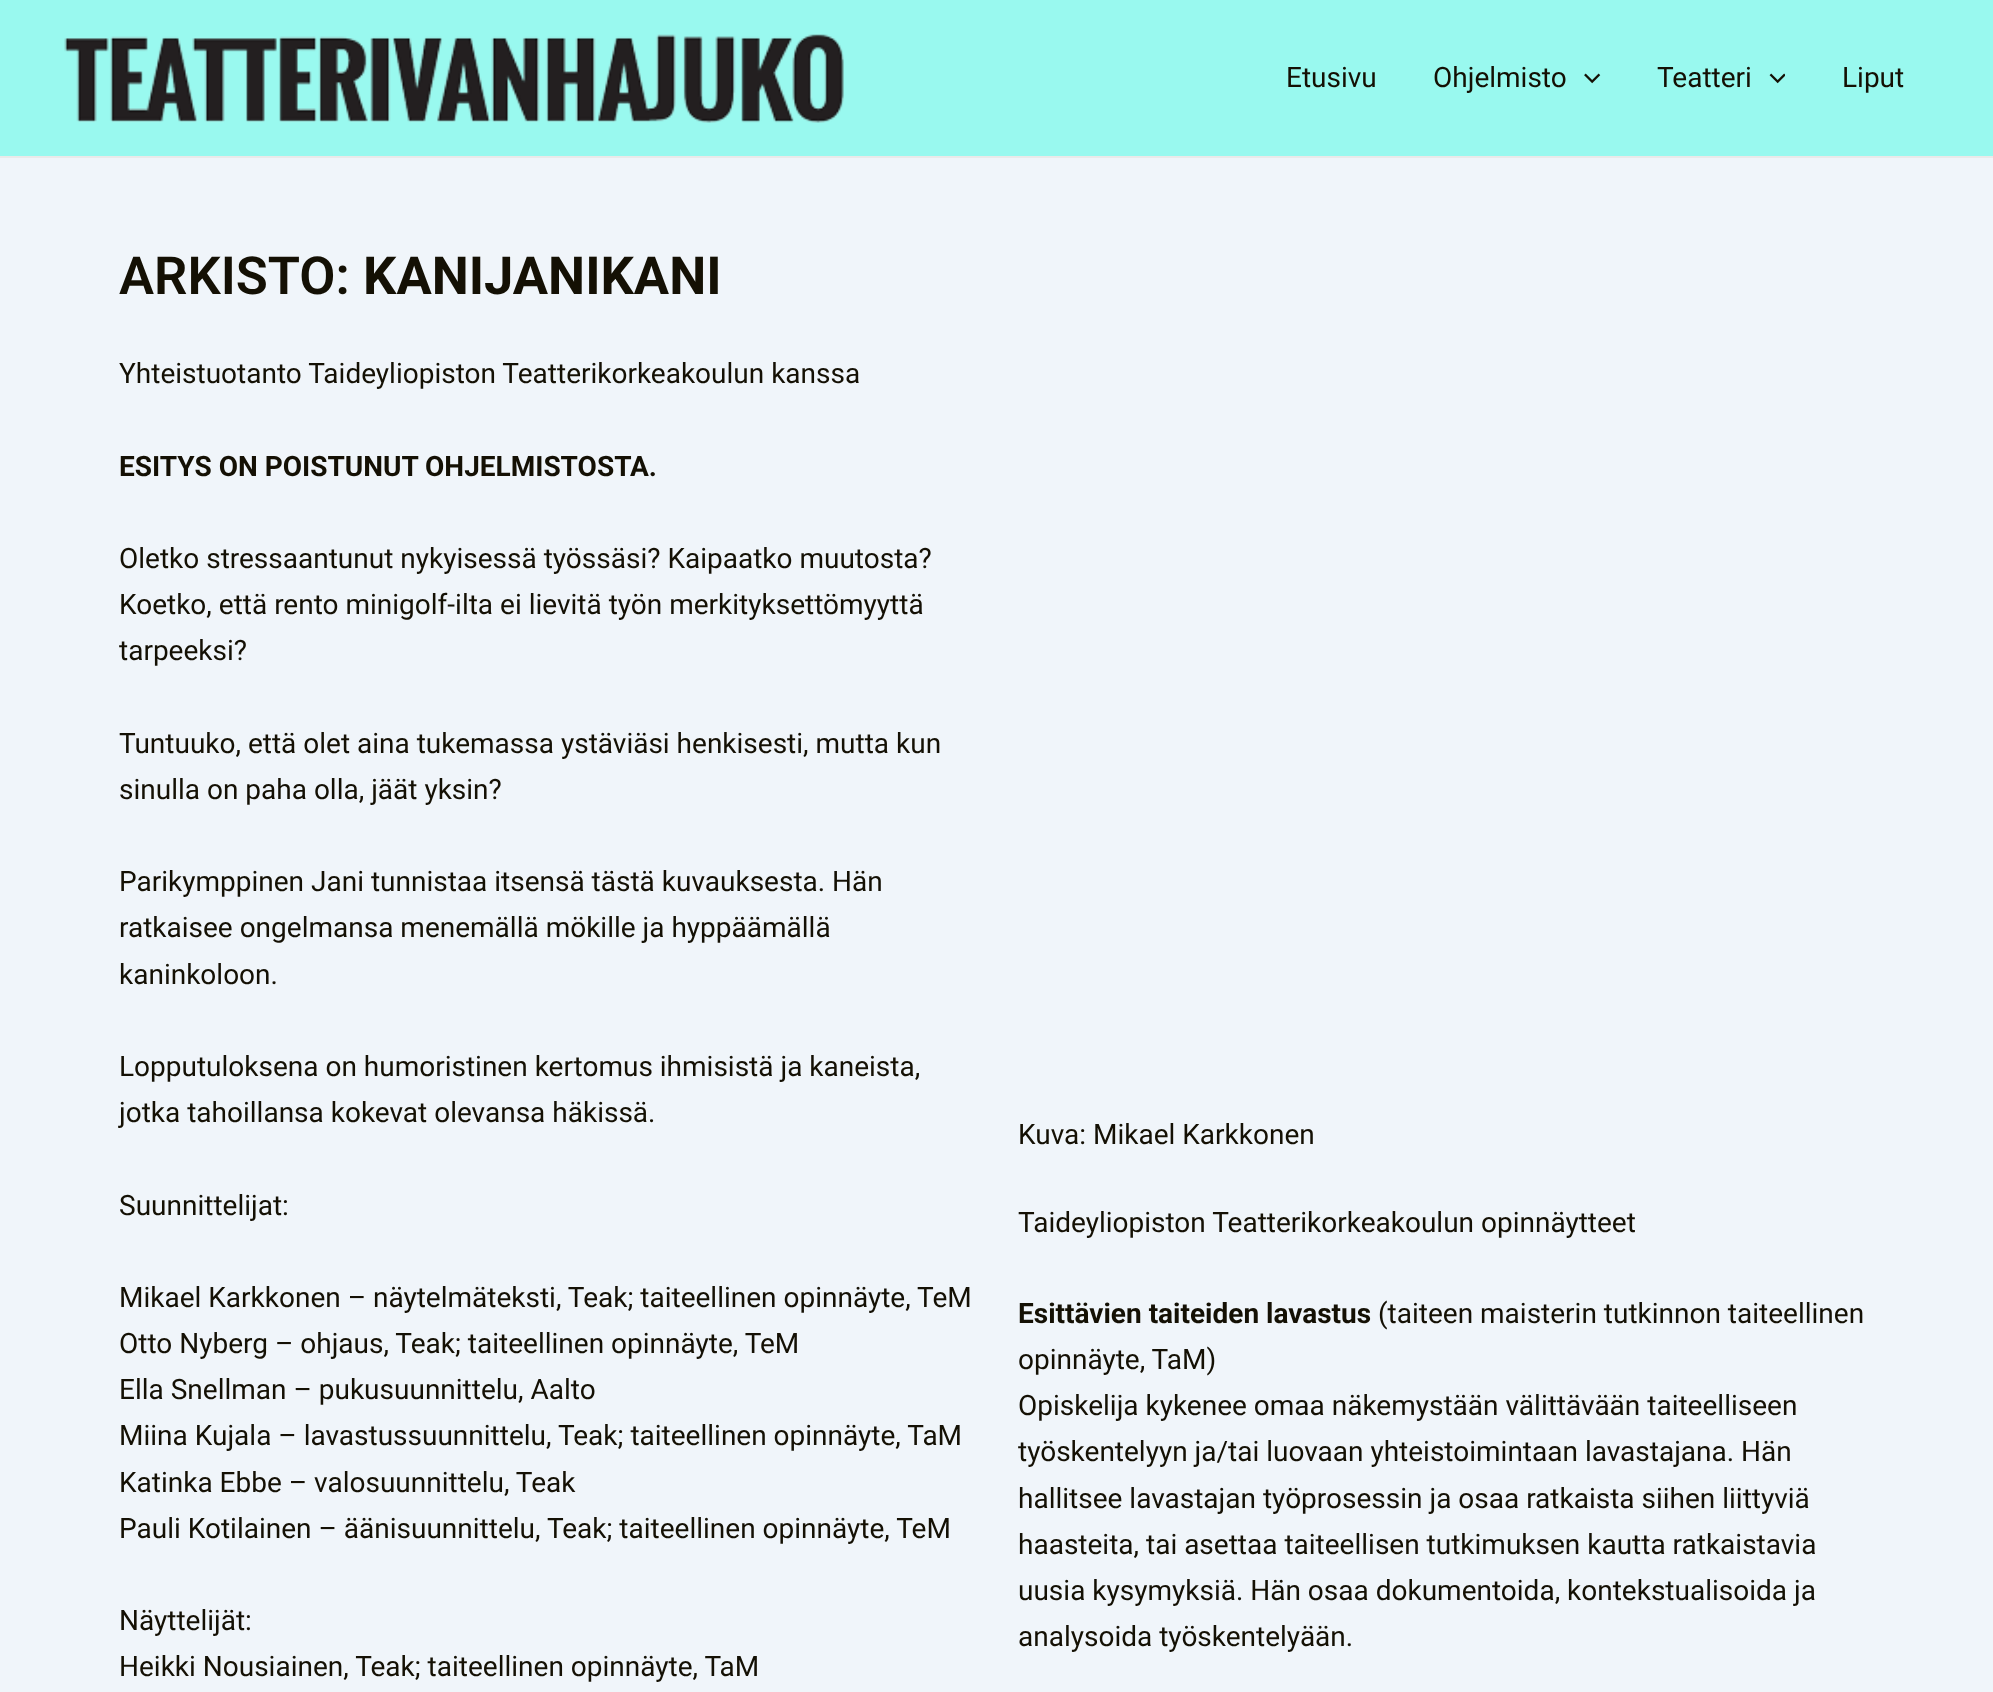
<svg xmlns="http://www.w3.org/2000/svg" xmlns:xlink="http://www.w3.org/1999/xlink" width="1993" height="1692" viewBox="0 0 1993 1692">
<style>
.cls-1{font:28px Roboto;fill:#141004}
.cls-2{font:600 52.5px Roboto;fill:#141004}
.cls-3{font:bold 52.5px Roboto;fill:#141004}
.cls-4{font:bold 28px Roboto;fill:#141004}
</style>
<rect width="100%" height="100%" fill="#f0f5fa"/>
<rect fill="#99f9ef" x="0" y="0" width="1993" height="156"/>
<rect fill="#eaeaea" x="0" y="156" width="1993" height="2"/>
<image xlink:href="image0.png" x="64" y="33" width="780" height="90"/>
<image xlink:href="image1.png" x="1584" y="73" width="17" height="11"/>
<image xlink:href="image2.png" x="1769" y="73" width="16" height="11"/>
<text class="cls-1" x="1286" y="87">Etusivu</text>
<text class="cls-1" x="1433" y="87">Ohjelmisto</text>
<text class="cls-1" x="1657" y="87">Teatteri</text>
<text class="cls-1" x="1842" y="87">Liput</text>
<text class="cls-2" x="119" y="294">ARKISTO:</text>
<text class="cls-3" x="363" y="294">KANIJANIKANI</text>
<text class="cls-1" x="119" y="383">Yhteistuotanto Taideyliopiston Teatterikorkeakoulun kanssa</text>
<text class="cls-4" x="119" y="476">ESITYS ON POISTUNUT OHJELMISTOSTA.</text>
<text class="cls-1"><tspan x="119" y="568">Oletko stressaantunut nykyisessä työssäsi? Kaipaatko muutosta?</tspan><tspan x="119" y="614">Koetko, että rento minigolf-ilta ei lievitä työn merkityksettömyyttä</tspan><tspan x="119" y="660">tarpeeksi?</tspan></text>
<text class="cls-1"><tspan x="119" y="753">Tuntuuko, että olet aina tukemassa ystäviäsi henkisesti, mutta kun</tspan><tspan x="119" y="799">sinulla on paha olla, jäät yksin?</tspan></text>
<text class="cls-1"><tspan x="119" y="891">Parikymppinen Jani tunnistaa itsensä tästä kuvauksesta. Hän</tspan><tspan x="119" y="937">ratkaisee ongelmansa menemällä mökille ja hyppäämällä</tspan><tspan x="119" y="984">kaninkoloon.</tspan></text>
<text class="cls-1"><tspan x="119" y="1076">Lopputuloksena on humoristinen kertomus ihmisistä ja kaneista,</tspan><tspan x="119" y="1122">jotka tahoillansa kokevat olevansa häkissä.</tspan></text>
<text class="cls-1" x="119" y="1215">Suunnittelijat:</text>
<text class="cls-1"><tspan x="119" y="1307">Mikael Karkkonen – näytelmäteksti, Teak; taiteellinen opinnäyte, TeM</tspan><tspan x="119" y="1353">Otto Nyberg – ohjaus, Teak; taiteellinen opinnäyte, TeM</tspan><tspan x="119" y="1399">Ella Snellman – pukusuunnittelu, Aalto</tspan><tspan x="119" y="1445">Miina Kujala – lavastussuunnittelu, Teak; taiteellinen opinnäyte, TaM</tspan><tspan x="119" y="1492">Katinka Ebbe – valosuunnittelu, Teak</tspan><tspan x="119" y="1538">Pauli Kotilainen – äänisuunnittelu, Teak; taiteellinen opinnäyte, TeM</tspan></text>
<text class="cls-1"><tspan x="119" y="1630">Näyttelijät:</tspan><tspan x="119" y="1676">Heikki Nousiainen, Teak; taiteellinen opinnäyte, TaM</tspan></text>
<text class="cls-1" x="1018" y="1144">Kuva: Mikael Karkkonen</text>
<text class="cls-1" x="1018" y="1232">Taideyliopiston Teatterikorkeakoulun opinnäytteet</text>
<text class="cls-4" x="1018" y="1323">Esittävien taiteiden lavastus</text>
<text class="cls-1" x="1378" y="1323">(taiteen maisterin tutkinnon taiteellinen</text>
<text class="cls-1"><tspan x="1018" y="1369">opinnäyte, TaM)</tspan><tspan x="1018" y="1415">Opiskelija kykenee omaa näkemystään välittävään taiteelliseen</tspan><tspan x="1018" y="1461">työskentelyyn ja/tai luovaan yhteistoimintaan lavastajana. Hän</tspan><tspan x="1018" y="1508">hallitsee lavastajan työprosessin ja osaa ratkaista siihen liittyviä</tspan><tspan x="1018" y="1554">haasteita, tai asettaa taiteellisen tutkimuksen kautta ratkaistavia</tspan><tspan x="1018" y="1600">uusia kysymyksiä. Hän osaa dokumentoida, kontekstualisoida ja</tspan><tspan x="1018" y="1646">analysoida työskentelyään.</tspan></text>
</svg>
